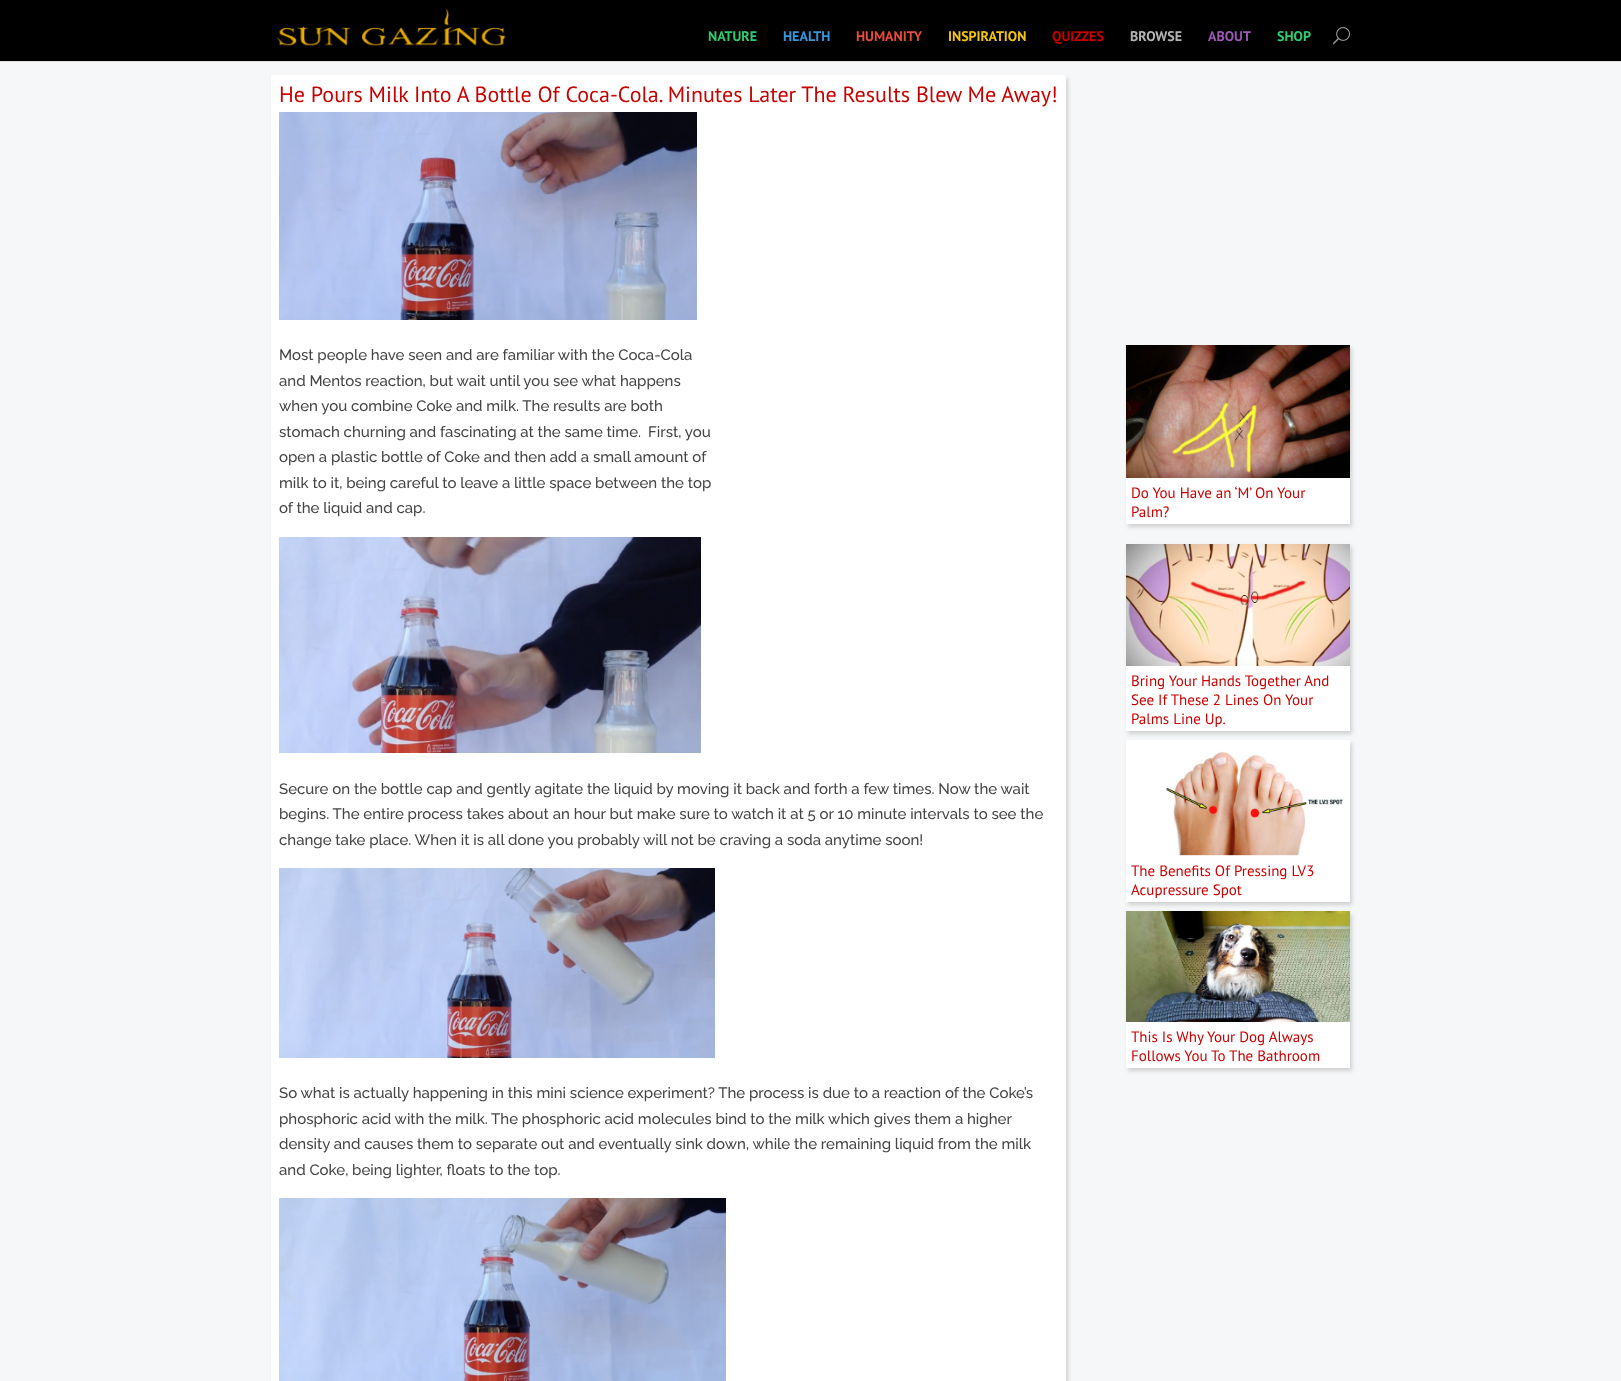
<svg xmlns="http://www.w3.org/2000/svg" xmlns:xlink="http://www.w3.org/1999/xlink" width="1621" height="1381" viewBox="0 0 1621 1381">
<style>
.cls-1{font:bold 14px PT Sans;fill:#2ecc71}
.cls-2{font:bold 14px PT Sans;fill:#3498db}
.cls-3{font:bold 14px PT Sans;fill:#e74c3c}
.cls-4{font:bold 14px PT Sans;fill:#f1c40f}
.cls-5{font:bold 14px PT Sans;fill:#c90000}
.cls-6{font:bold 14px PT Sans;fill:#b3b3b3}
.cls-7{font:bold 14px PT Sans;fill:#9b59b6}
.cls-8{font:22px PT Sans;fill:#c90000}
.cls-9{font:500 15px Raleway;fill:#444444}
.cls-10{font:15px PT Sans;fill:#c90000}
</style>
<rect width="100%" height="100%" fill="#f6f7f8"/>
<rect fill="#dddedf" x="0" y="61" width="1621" height="1"/>
<rect fill="#000000" x="0" y="0" width="1621" height="61"/>
<image xlink:href="image0.png" x="276" y="8" width="230" height="38"/>
<image xlink:href="image1.png" x="1333" y="27" width="17" height="18"/>
<rect fill="#a5a5a5" fill-opacity="0.48" filter="blur(2px)" x="273" y="78" width="795" height="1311" rx="2"/>
<rect fill="#ffffff" x="271" y="75" width="795" height="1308" rx="2"/>
<image xlink:href="image2.png" x="279" y="112" width="418" height="208"/>
<image xlink:href="image3.png" x="279" y="537" width="422" height="216"/>
<image xlink:href="image4.png" x="279" y="868" width="436" height="190"/>
<image xlink:href="image5.png" x="279" y="1198" width="447" height="183"/>
<rect fill="#a5a5a5" fill-opacity="0.48" filter="blur(2px)" x="1128" y="348" width="224" height="179"/>
<rect fill="#ffffff" x="1126" y="478" width="224" height="46"/>
<image xlink:href="image6.png" x="1126" y="345" width="224" height="133"/>
<rect fill="#a5a5a5" fill-opacity="0.48" filter="blur(2px)" x="1128" y="547" width="224" height="187"/>
<rect fill="#ffffff" x="1126" y="666" width="224" height="65"/>
<image xlink:href="image7.png" x="1126" y="544" width="224" height="122"/>
<rect fill="#a5a5a5" fill-opacity="0.48" filter="blur(2px)" x="1128" y="743" width="224" height="162"/>
<rect fill="#ffffff" x="1126" y="740" width="224" height="162"/>
<image xlink:href="image8.png" x="1166" y="751" width="177" height="105"/>
<rect fill="#a5a5a5" fill-opacity="0.48" filter="blur(2px)" x="1128" y="914" width="224" height="157"/>
<rect fill="#ffffff" x="1126" y="1022" width="224" height="46"/>
<image xlink:href="image9.png" x="1126" y="911" width="224" height="111"/>
<text class="cls-1" x="708" y="41">NATURE</text>
<text class="cls-2" x="783" y="41">HEALTH</text>
<text class="cls-3" x="856" y="41">HUMANITY</text>
<text class="cls-4" x="948" y="41">INSPIRATION</text>
<text class="cls-5" x="1052" y="41">QUIZZES</text>
<text class="cls-6" x="1130" y="41">BROWSE</text>
<text class="cls-7" x="1208" y="41">ABOUT</text>
<text class="cls-1" x="1277" y="41">SHOP</text>
<text class="cls-8" x="279" y="102">He Pours Milk Into A Bottle Of Coca-Cola. Minutes Later The Results Blew Me Away!</text>
<text class="cls-9"><tspan x="279" y="360">Most people have seen and are familiar with the Coca-Cola</tspan><tspan x="279" y="386">and Mentos reaction, but wait until you see what happens</tspan><tspan x="279" y="411">when you combine Coke and milk. The results are both</tspan><tspan x="279" y="437">stomach churning and fascinating at the same time.</tspan></text>
<text class="cls-9" x="648" y="437">First, you</text>
<text class="cls-9"><tspan x="279" y="462">open a plastic bottle of Coke and then add a small amount of</tspan><tspan x="279" y="488">milk to it, being careful to leave a little space between the top</tspan><tspan x="279" y="513">of the liquid and cap.</tspan></text>
<text class="cls-9"><tspan x="279" y="794">Secure on the bottle cap and gently agitate the liquid by moving it back and forth a few times. Now the wait</tspan><tspan x="279" y="819">begins. The entire process takes about an hour but make sure to watch it at 5 or 10 minute intervals to see the</tspan><tspan x="279" y="845">change take place. When it is all done you probably will not be craving a soda anytime soon!</tspan></text>
<text class="cls-9"><tspan x="279" y="1098">So what is actually happening in this mini science experiment? The process is due to a reaction of the Coke’s</tspan><tspan x="279" y="1124">phosphoric acid with the milk. The phosphoric acid molecules bind to the milk which gives them a higher</tspan><tspan x="279" y="1149">density and causes them to separate out and eventually sink down, while the remaining liquid from the milk</tspan><tspan x="279" y="1175">and Coke, being lighter, floats to the top.</tspan></text>
<text class="cls-10"><tspan x="1131" y="498">Do You Have an ‘M’ On Your</tspan><tspan x="1131" y="517">Palm?</tspan></text>
<text class="cls-10"><tspan x="1131" y="686">Bring Your Hands Together And</tspan><tspan x="1131" y="705">See If These 2 Lines On Your</tspan><tspan x="1131" y="724">Palms Line Up.</tspan></text>
<text class="cls-10"><tspan x="1131" y="876">The Benefits Of Pressing LV3</tspan><tspan x="1131" y="895">Acupressure Spot</tspan></text>
<text class="cls-10"><tspan x="1131" y="1042">This Is Why Your Dog Always</tspan><tspan x="1131" y="1061">Follows You To The Bathroom</tspan></text>
</svg>
